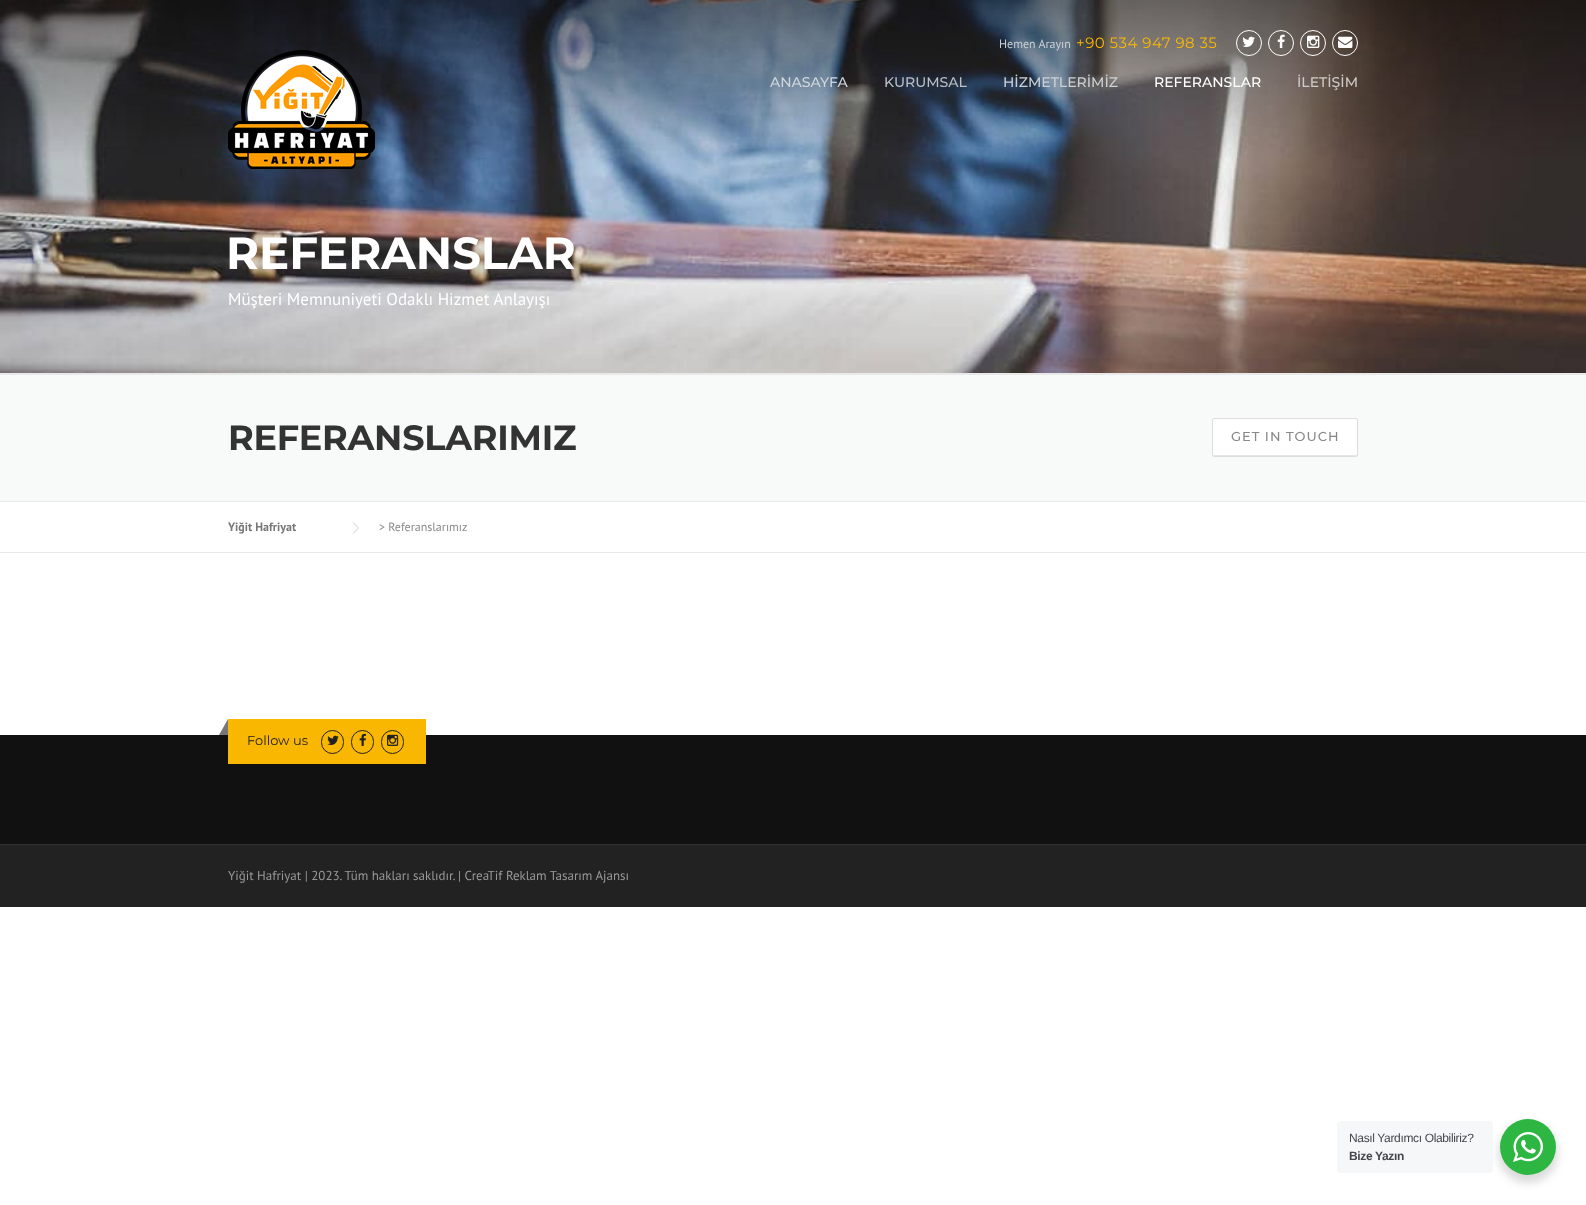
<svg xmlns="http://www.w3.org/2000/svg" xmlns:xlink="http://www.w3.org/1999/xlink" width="1586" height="1205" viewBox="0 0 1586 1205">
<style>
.cls-1{font:12px PT Sans;fill:#cad0d6}
.cls-2{font:15px Montserrat;letter-spacing:0.5px;fill:#fab702}
.cls-3{font:500 14px Montserrat;fill:#d0d6dc}
.cls-4{font:500 14px Montserrat;fill:#bcbfc4}
.cls-5{font:500 14px Montserrat;fill:#cad0d6}
.cls-6{font:500 14px Montserrat;fill:#ffffff}
.cls-7{font:500 14px Montserrat;fill:#cfcbc8}
.cls-8{font:bold 45px Montserrat;fill:#ffffff}
.cls-9{font:17px PT Sans;fill:#ffffff}
.cls-10{font:bold 35px Montserrat;letter-spacing:-0.25px;fill:#333333}
.cls-11{font:500 13px Montserrat;letter-spacing:1px;fill:#888888}
.cls-12{font:bold 12px PT Sans;fill:#777777}
.cls-13{font:12px PT Sans;fill:#888888}
.cls-14{font:13px Montserrat;fill:#222222}
.cls-15{font:13px PT Sans;fill:#999999}
.cls-16{font:12px Liberation Sans;letter-spacing:-0.35px;fill:#43474e}
.cls-17{font:bold 12px Liberation Sans;letter-spacing:-0.35px;fill:#43474e}
</style>
<rect width="100%" height="100%" fill="#ffffff"/>
<image xlink:href="image5.png" x="0" y="0" width="1586" height="373"/>
<image xlink:href="image0.png" x="228" y="50" width="147" height="119"/>
<circle fill="none" stroke="#ffffff" cx="1249" cy="43" r="12.5"/>
<image xlink:href="image1.png" x="1242" y="36" width="13" height="11"/>
<circle fill="none" stroke="#ffffff" cx="1281" cy="43" r="12.5"/>
<image xlink:href="image2.png" x="1277" y="34" width="8" height="14"/>
<circle fill="none" stroke="#ffffff" cx="1313" cy="43" r="12.5"/>
<image xlink:href="image3.png" x="1307" y="35" width="13" height="13"/>
<circle fill="none" stroke="#ffffff" cx="1345" cy="43" r="12.5"/>
<image xlink:href="image4.png" x="1338" y="36" width="15" height="12"/>
<rect fill="#f8f9f9" x="0" y="375" width="1586" height="126"/>
<rect fill="#e9e9e9" x="0" y="373" width="1586" height="2"/>
<rect fill="#e9e9e9" x="0" y="501" width="1586" height="1"/>
<rect fill="#ffffff" x="1212" y="418" width="146" height="39" rx="2"/>
<path fill="#e6e6e6" d="M1213 454C1213 455 1213 456 1214 456H1357V454C1357 455 1357 455 1356 455H1214C1213 455 1213 455 1213 454Z"/>
<rect fill="none" stroke="#dddddd" x="1212.5" y="418.5" width="145" height="38" rx="1.5"/>
<rect fill="#e9e9e9" x="0" y="552" width="1586" height="1"/>
<path fill="#cccccc" d="M353 534V522L359 528Z"/>
<path fill="#ffffff" d="M353 533V523L358 528Z"/>
<rect fill="#111111" x="0" y="735" width="1586" height="109"/>
<rect fill="#fab702" x="228" y="719" width="198" height="45"/>
<path fill="#777777" d="M228 719V735H219Z"/>
<rect fill="none" stroke="#222222" x="321.5" y="730.5" width="22" height="23" rx="11"/>
<image xlink:href="image6.png" x="327" y="735" width="12" height="10"/>
<rect fill="none" stroke="#222222" x="351.5" y="730.5" width="22" height="23" rx="11"/>
<image xlink:href="image7.png" x="359" y="733" width="7" height="13"/>
<rect fill="none" stroke="#222222" x="381.5" y="730.5" width="22" height="23" rx="11"/>
<image xlink:href="image8.png" x="387" y="734" width="12" height="12"/>
<rect fill="#222222" x="0" y="845" width="1586" height="62"/>
<rect fill="#333333" x="0" y="844" width="1586" height="1"/>
<rect fill="#000000" fill-opacity="0.14" filter="blur(4px)" x="1498" y="1123" width="60" height="60" rx="30"/>
<rect fill="#f5f7f9" x="1337" y="1121" width="156" height="52" rx="4"/>
<circle fill="#2db742" cx="1528" cy="1147" r="28"/>
<image xlink:href="image9.png" x="1513" y="1132" width="30" height="30"/>
<text class="cls-1" x="999" y="48">Hemen Arayın</text>
<text class="cls-2" x="1076" y="48">+90 534 947 98 35</text>
<text class="cls-3" x="770" y="87">ANASAYFA</text>
<text class="cls-4" x="884" y="87">KURUMSAL</text>
<text class="cls-5" x="1003" y="87">HİZMETLERİMİZ</text>
<text class="cls-6" x="1154" y="87">REFERANSLAR</text>
<text class="cls-7" x="1297" y="87">İLETİŞİM</text>
<text class="cls-8" x="226" y="269">REFERANSLAR</text>
<text class="cls-9" x="228" y="305">Müşteri Memnuniyeti Odaklı Hizmet Anlayışı</text>
<text class="cls-10" x="228" y="450">REFERANSLARIMIZ</text>
<text class="cls-11" x="1231" y="441">GET IN TOUCH</text>
<text class="cls-12" x="228" y="531">Yiğit Hafriyat</text>
<text class="cls-13" x="379" y="531">&gt; Referanslarımız</text>
<text class="cls-14" x="247" y="745">Follow us</text>
<text class="cls-15" x="228" y="880">Yiğit Hafriyat | 2023. Tüm hakları saklıdır. | CreaTif Reklam Tasarım Ajansı</text>
<text class="cls-16" x="1349" y="1142">Nasıl Yardımcı Olabiliriz?</text>
<text class="cls-17" x="1349" y="1160">Bize Yazın</text>
</svg>
